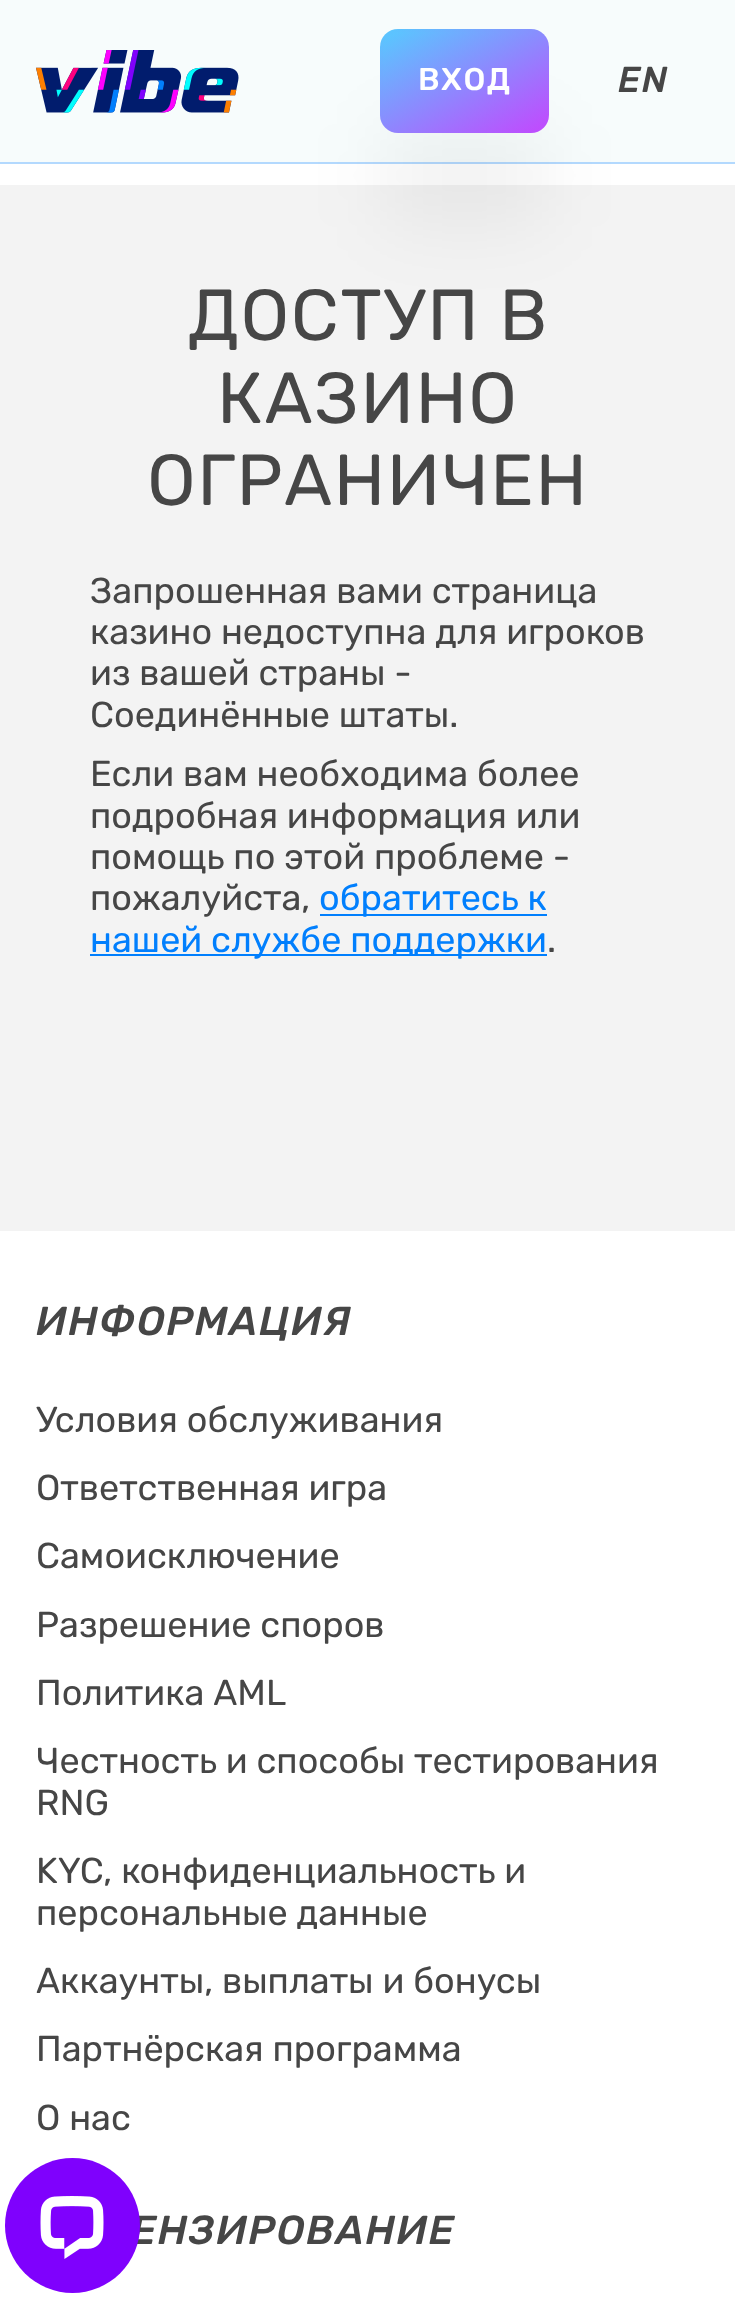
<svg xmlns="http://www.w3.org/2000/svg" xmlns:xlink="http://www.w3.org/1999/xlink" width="735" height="2297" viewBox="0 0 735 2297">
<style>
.cls-1{font:500 31.5px Rubik;letter-spacing:1.5px;fill:#ffffff}
.cls-2{font:italic 500 36px Rubik;letter-spacing:1.5px;fill:#464646}
.cls-3{font:72px Rubik;letter-spacing:1.5px;fill:#464646}
.cls-4{font:36px Rubik;fill:#464646}
.cls-5{font:36px Rubik;fill:#017ffd}
.cls-6{font:italic 500 40.5px Rubik;letter-spacing:1.5px;fill:#464646}
</style>
<defs>
<linearGradient id="g1" gradientUnits="userSpaceOnUse" x1="387" y1="-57" x2="554" y2="240"><stop offset="0" stop-color="#2bffff"/><stop offset="1" stop-color="#fd01fd"/></linearGradient>
<linearGradient id="g2" gradientUnits="userSpaceOnUse" x1="390" y1="-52" x2="551" y2="235"><stop offset="0" stop-color="#2bffff"/><stop offset="1" stop-color="#fd01fd"/></linearGradient>
</defs>
<rect width="100%" height="100%" fill="#f3f3f3"/>
<rect fill="#ffffff" x="0" y="164" width="735" height="21"/>
<rect fill="#f7fcfc" x="0" y="0" width="735" height="162"/>
<image xlink:href="image0.png" x="36" y="50" width="203" height="63"/>
<rect fill="#b3d9fe" x="0" y="162" width="735" height="2"/>
<rect fill="#000000" fill-opacity="0.05" filter="blur(37.5px)" x="380" y="124" width="169" height="103" rx="18"/>
<rect fill="url(#g1)" x="380" y="29" width="169" height="104" rx="18"/>
<rect fill="url(#g2)" x="383" y="32" width="164" height="99" rx="16"/>
<rect fill="#017ffd" x="320" y="914" width="227" height="2"/>
<rect fill="#017ffd" x="90" y="954" width="457" height="2"/>
<rect fill="#ffffff" x="0" y="1231" width="735" height="1066"/>
<text class="cls-1" x="418" y="90">ВХОД</text>
<text class="cls-2" x="618" y="92">EN</text>
<text class="cls-3" x="188" y="340">ДОСТУП В</text>
<text class="cls-3" x="217" y="423">КАЗИНО</text>
<text class="cls-3" x="147" y="505">ОГРАНИЧЕН</text>
<text class="cls-4"><tspan x="90" y="603">Запрошенная вами страница</tspan><tspan x="90" y="644">казино недоступна для игроков</tspan><tspan x="90" y="685">из вашей страны -</tspan><tspan x="90" y="727">Соединённые штаты.</tspan><tspan x="90" y="786">Если вам необходима более</tspan><tspan x="90" y="828">подробная информация или</tspan><tspan x="90" y="869">помощь по этой проблеме -</tspan><tspan x="90" y="910">пожалуйста,</tspan></text>
<text class="cls-5" x="319" y="910">обратитесь к</text>
<text class="cls-5" x="90" y="952">нашей службе поддержки</text>
<text class="cls-4" x="547" y="952">.</text>
<text class="cls-6" x="36" y="1335">ИНФОРМАЦИЯ</text>
<text class="cls-4"><tspan x="36" y="1432">Условия обслуживания</tspan><tspan x="36" y="1500">Ответственная игра</tspan><tspan x="36" y="1568">Самоисключение</tspan><tspan x="36" y="1637">Разрешение споров</tspan><tspan x="36" y="1705">Политика AML</tspan><tspan x="36" y="1773">Честность и способы тестирования</tspan><tspan x="36" y="1815">RNG</tspan><tspan x="36" y="1883">KYC, конфиденциальность и</tspan><tspan x="36" y="1925">персональные данные</tspan><tspan x="36" y="1993">Аккаунты, выплаты и бонусы</tspan><tspan x="36" y="2061">Партнёрская программа</tspan><tspan x="36" y="2130">О нас</tspan></text>
<text class="cls-6" x="131" y="2244">ЕНЗИРОВАНИЕ</text>
<circle fill="#7f01fd" cx="72.5" cy="2225.5" r="67.5"/>
<image xlink:href="image1.png" x="40" y="2196" width="64" height="63"/>
</svg>
